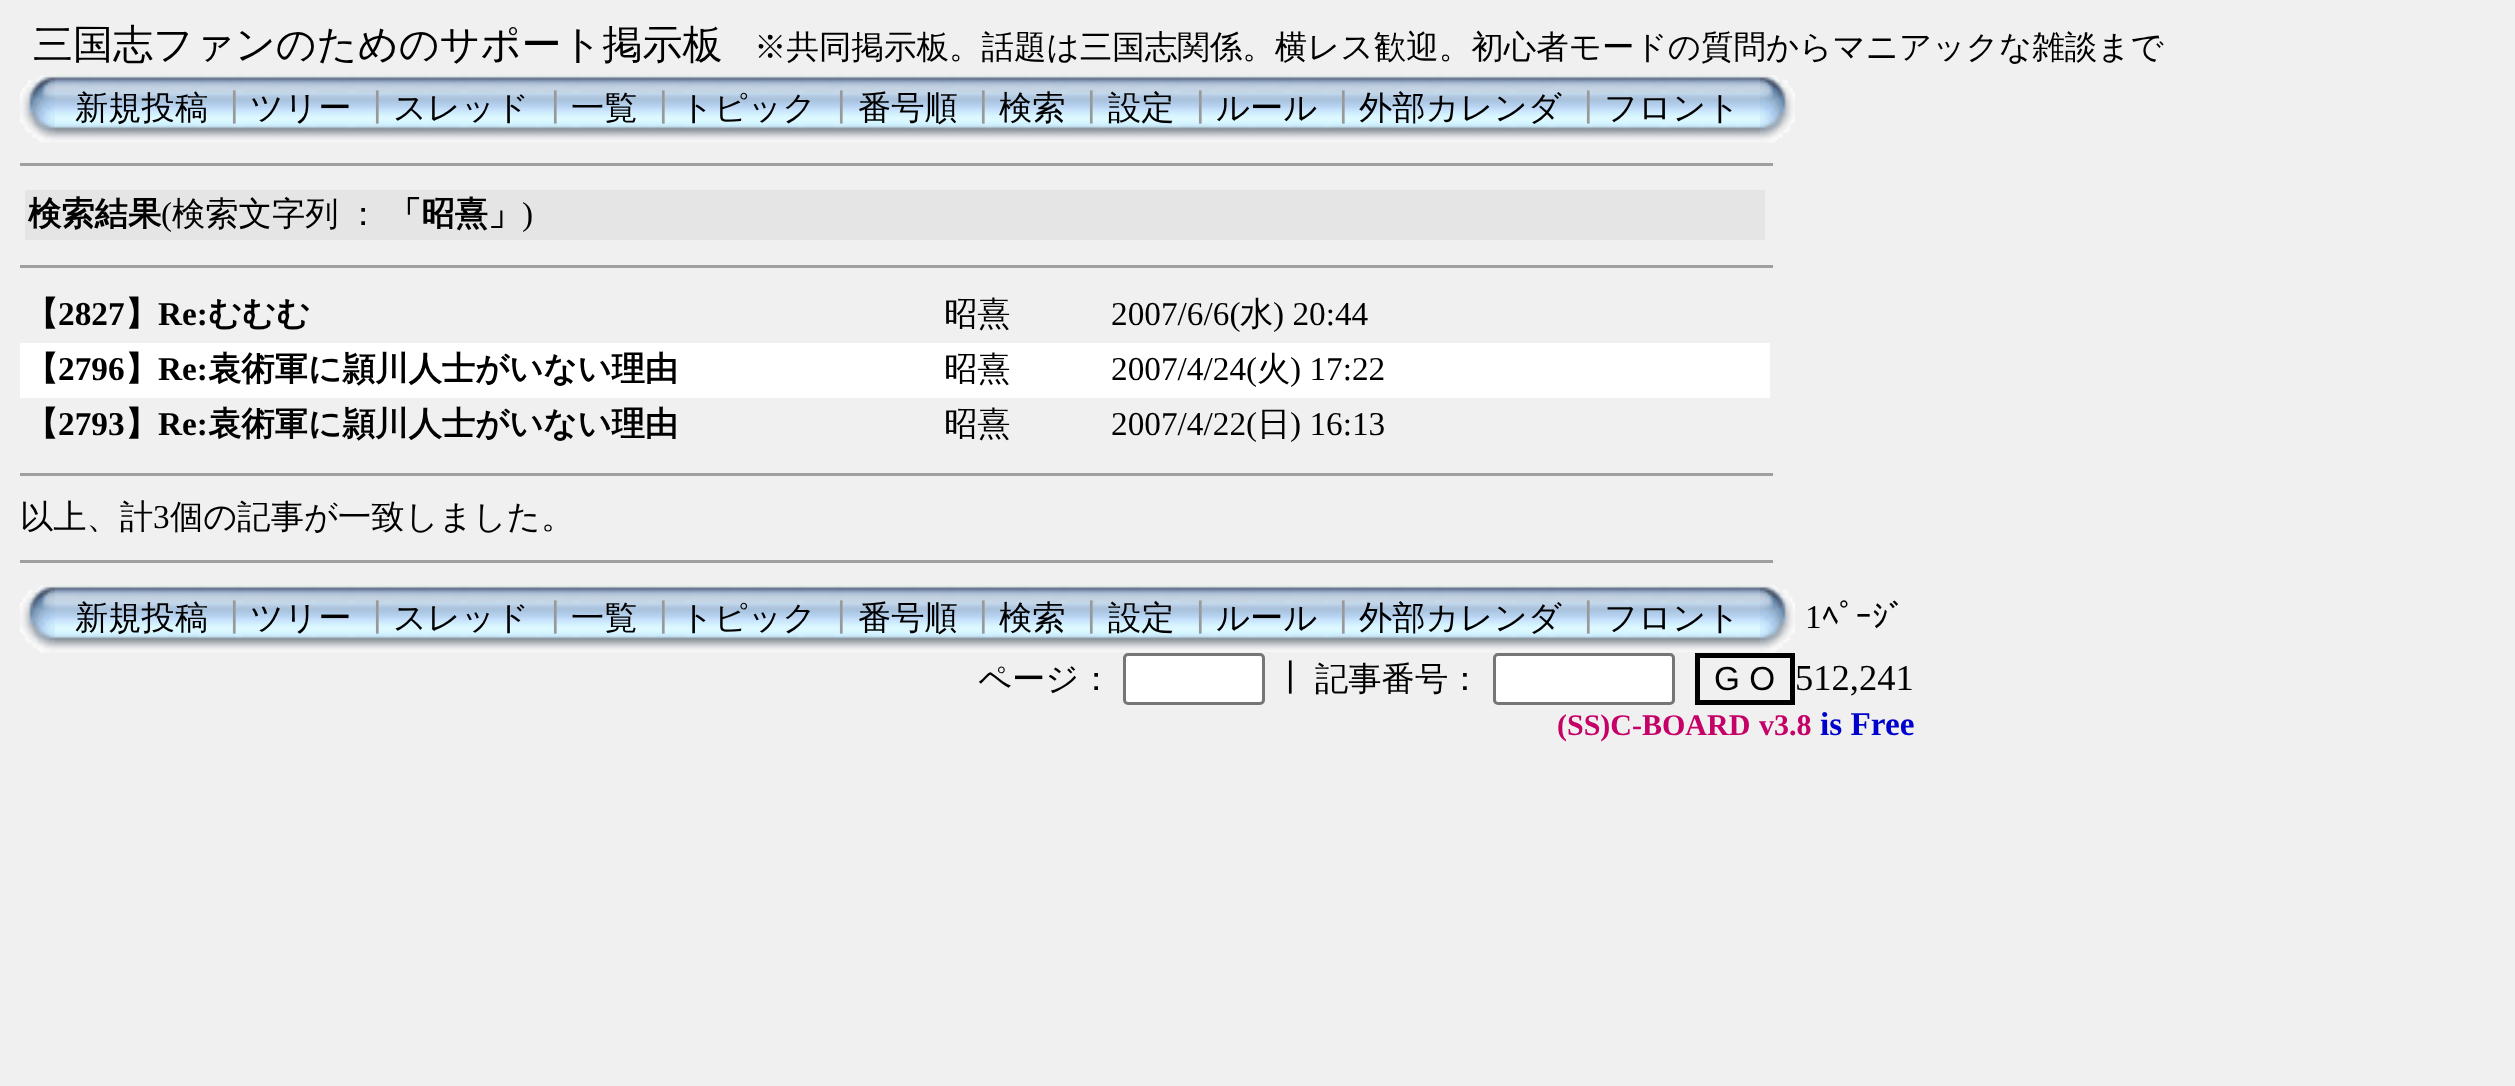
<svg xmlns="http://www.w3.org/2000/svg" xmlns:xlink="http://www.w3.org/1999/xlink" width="2515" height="1086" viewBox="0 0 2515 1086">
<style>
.cls-1{font:500 40px WenQuanYi Zen Hei;fill:#000000}
.cls-2{font:500 32.5px WenQuanYi Zen Hei;fill:#000000}
.cls-3{font:500 33.3px WenQuanYi Zen Hei;fill:#000000}
.cls-4{font:500 33.3px WenQuanYi Zen Hei;fill:#999999}
.cls-5{font:bold 33.3px WenQuanYi Zen Hei;fill:#000000}
.cls-6{font:33.3px Liberation Serif;fill:#000000}
.cls-7{font:bold 33.3px Liberation Serif;fill:#000000}
.cls-8{font:33.3px IPAPGothic;fill:#000000}
.cls-9{font:33.3px Liberation Sans;fill:#000000}
.cls-10{font:36.5px Liberation Serif;fill:#000000}
.cls-11{font:bold 30px Liberation Serif;fill:#c50067}
.cls-12{font:bold 33.3px Liberation Serif;fill:#0000cc}
</style>
<rect width="100%" height="100%" fill="#f0f0f0"/>
<image xlink:href="image0.png" x="20" y="75" width="35" height="68"/>
<image xlink:href="image1.png" x="55" y="74" width="1705" height="68"/>
<image xlink:href="image2.png" x="1760" y="75" width="35" height="68"/>
<rect fill="#9f9f9f" x="20" y="163" width="1755" height="3"/>
<rect fill="#eeeeee" x="1773" y="163" width="3" height="3"/>
<rect fill="#e5e5e5" x="25" y="190" width="1740" height="50"/>
<rect fill="#9f9f9f" x="20" y="265" width="1755" height="3"/>
<rect fill="#eeeeee" x="1773" y="265" width="3" height="3"/>
<rect fill="#ffffff" x="20" y="343" width="1750" height="55"/>
<rect fill="#9f9f9f" x="20" y="473" width="1755" height="3"/>
<rect fill="#eeeeee" x="1773" y="473" width="3" height="3"/>
<rect fill="#9f9f9f" x="20" y="560" width="1755" height="3"/>
<rect fill="#eeeeee" x="1773" y="560" width="3" height="3"/>
<image xlink:href="image3.png" x="20" y="585" width="35" height="68"/>
<image xlink:href="image4.png" x="55" y="585" width="1705" height="67"/>
<image xlink:href="image5.png" x="1760" y="585" width="35" height="68"/>
<rect fill="#ffffff" stroke="#767676" stroke-width="3" x="1124.5" y="654.5" width="139" height="49" rx="3.5"/>
<rect fill="#ffffff" stroke="#767676" stroke-width="3" x="1494.5" y="654.5" width="179" height="49" rx="3.5"/>
<rect fill="none" stroke="#000000" stroke-width="5" x="1697.5" y="655.5" width="95" height="47"/>
<text class="cls-1" x="33" y="58">三国志ファンのためのサポート掲示板</text>
<text class="cls-2" x="754" y="58">※共同掲示板。話題は三国志関係。横レス歓迎。初心者モードの質問からマニアックな雑談まで</text>
<text class="cls-3" x="75" y="119">新規投稿</text>
<text class="cls-4" x="217" y="119">┃</text>
<text class="cls-3" x="250" y="119">ツリー</text>
<text class="cls-4" x="360" y="119">┃</text>
<text class="cls-3" x="393" y="119">スレッド</text>
<text class="cls-4" x="538" y="119">┃</text>
<text class="cls-3" x="571" y="119">一覧</text>
<text class="cls-4" x="646" y="119">┃</text>
<text class="cls-3" x="680" y="119">トピック</text>
<text class="cls-4" x="824" y="119">┃</text>
<text class="cls-3" x="858" y="119">番号順</text>
<text class="cls-4" x="966" y="119">┃</text>
<text class="cls-3" x="999" y="119">検索</text>
<text class="cls-4" x="1074" y="119">┃</text>
<text class="cls-3" x="1108" y="119">設定</text>
<text class="cls-4" x="1183" y="119">┃</text>
<text class="cls-3" x="1216" y="119">ルール</text>
<text class="cls-4" x="1326" y="119">┃</text>
<text class="cls-3" x="1359" y="119">外部カレンダ</text>
<text class="cls-4" x="1571" y="119">┃</text>
<text class="cls-3" x="1604" y="119">フロント</text>
<text class="cls-5" x="28" y="225">検索結果</text>
<text class="cls-6" x="161" y="225">(</text>
<text class="cls-3" x="172" y="225" word-spacing="-2">検索文字列 ：</text>
<text class="cls-5" x="388" y="225">「昭熹」</text>
<text class="cls-6" x="522" y="225">)</text>
<text class="cls-5" x="25" y="325">【</text>
<text class="cls-7" x="58" y="325">2827</text>
<text class="cls-5" x="125" y="325">】</text>
<text class="cls-7" x="158" y="325">Re:</text>
<text class="cls-5" x="208" y="325">むむむ</text>
<text class="cls-3" x="944" y="325">昭熹</text>
<text class="cls-6" x="1111" y="325">2007/6/6(</text>
<text class="cls-3" x="1240" y="325">水</text>
<text class="cls-6" x="1273" y="325">) 20:44</text>
<text class="cls-5" x="25" y="380">【</text>
<text class="cls-7" x="58" y="380">2796</text>
<text class="cls-5" x="125" y="380">】</text>
<text class="cls-7" x="158" y="380">Re:</text>
<text class="cls-5" x="208" y="380">袁術軍に頴川人士がいない理由</text>
<text class="cls-3" x="944" y="380">昭熹</text>
<text class="cls-6" x="1111" y="380">2007/4/24(</text>
<text class="cls-3" x="1257" y="380">火</text>
<text class="cls-6" x="1290" y="380">) 17:22</text>
<text class="cls-5" x="25" y="435">【</text>
<text class="cls-7" x="58" y="435">2793</text>
<text class="cls-5" x="125" y="435">】</text>
<text class="cls-7" x="158" y="435">Re:</text>
<text class="cls-5" x="208" y="435">袁術軍に頴川人士がいない理由</text>
<text class="cls-3" x="944" y="435">昭熹</text>
<text class="cls-6" x="1111" y="435">2007/4/22(</text>
<text class="cls-3" x="1257" y="435">日</text>
<text class="cls-6" x="1290" y="435">) 16:13</text>
<text class="cls-3" x="20" y="528">以上、計</text>
<text class="cls-6" x="153" y="528">3</text>
<text class="cls-3" x="170" y="528">個の記事が一致しました。</text>
<text class="cls-3" x="75" y="629">新規投稿</text>
<text class="cls-4" x="217" y="629">┃</text>
<text class="cls-3" x="250" y="629">ツリー</text>
<text class="cls-4" x="360" y="629">┃</text>
<text class="cls-3" x="393" y="629">スレッド</text>
<text class="cls-4" x="538" y="629">┃</text>
<text class="cls-3" x="571" y="629">一覧</text>
<text class="cls-4" x="646" y="629">┃</text>
<text class="cls-3" x="680" y="629">トピック</text>
<text class="cls-4" x="824" y="629">┃</text>
<text class="cls-3" x="858" y="629">番号順</text>
<text class="cls-4" x="966" y="629">┃</text>
<text class="cls-3" x="999" y="629">検索</text>
<text class="cls-4" x="1074" y="629">┃</text>
<text class="cls-3" x="1108" y="629">設定</text>
<text class="cls-4" x="1183" y="629">┃</text>
<text class="cls-3" x="1216" y="629">ルール</text>
<text class="cls-4" x="1326" y="629">┃</text>
<text class="cls-3" x="1359" y="629">外部カレンダ</text>
<text class="cls-4" x="1571" y="629">┃</text>
<text class="cls-3" x="1604" y="629">フロント</text>
<text class="cls-6" x="1805" y="628">1</text>
<text class="cls-8" x="1822" y="628">ﾍﾟｰｼﾞ</text>
<text class="cls-3" x="978" y="690">ページ：</text>
<text class="cls-3" x="1273" y="689">┃</text>
<text class="cls-3" x="1315" y="690">記事番号：</text>
<text class="cls-9" x="1714" y="690">G O</text>
<text class="cls-10" x="1795" y="690">512,241</text>
<text class="cls-11" x="1557" y="735">(SS)C-BOARD</text>
<text class="cls-11" x="1759" y="735">v3.8</text>
<text class="cls-12" x="1820" y="735">is Free</text>
</svg>
